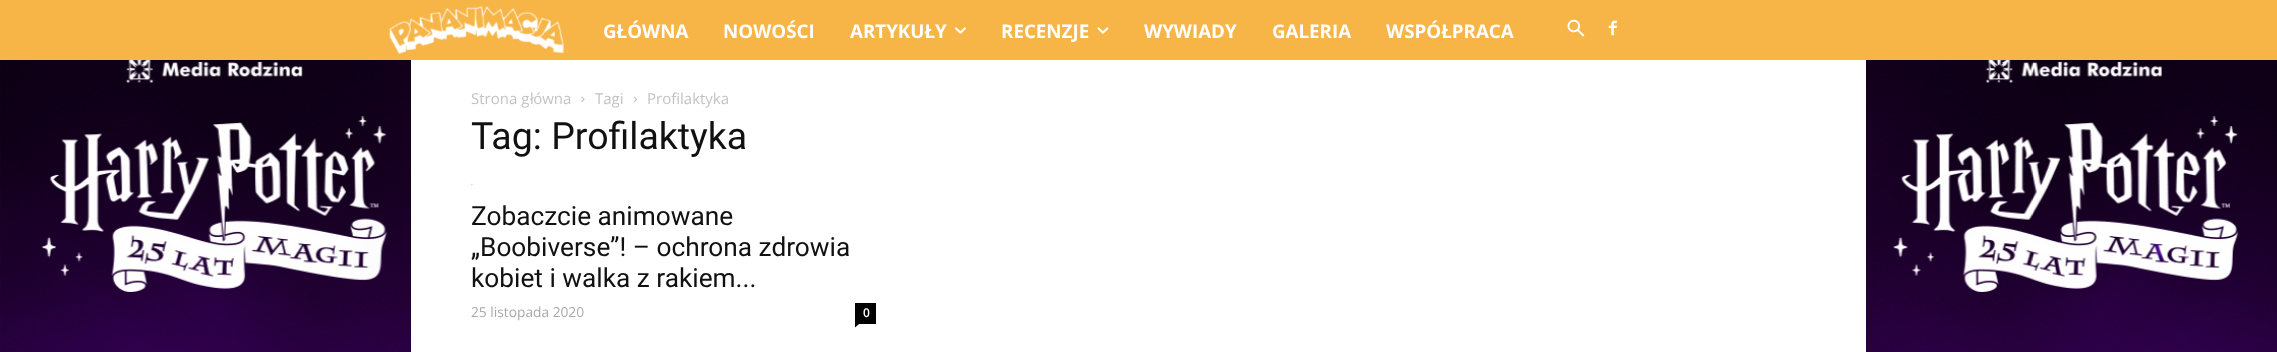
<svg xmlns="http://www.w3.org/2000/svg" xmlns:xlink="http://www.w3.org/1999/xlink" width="2277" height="352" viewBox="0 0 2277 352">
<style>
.cls-1{font:bold 18.75px Open Sans;fill:#ffffff}
.cls-2{font:15px Open Sans;fill:#c3c3c3}
.cls-3{font:15px 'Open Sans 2';fill:#c3c3c3}
.cls-4{font:37.5px Roboto;fill:#111111}
.cls-5{font:26.25px Roboto;fill:#111111}
.cls-6{font:13.75px Open Sans;fill:#aaaaaa}
.cls-7{font:600 12px Open Sans;fill:#ffffff}
</style>
<rect width="100%" height="100%" fill="#ffffff"/>
<rect fill="#f7b547" x="0" y="0" width="2277" height="60"/>
<image xlink:href="image0.png" x="389" y="5" width="175" height="49"/>
<image xlink:href="image1.png" x="955" y="27" width="11" height="7"/>
<image xlink:href="image2.png" x="1097" y="27" width="12" height="7"/>
<image xlink:href="image3.png" x="1567" y="19" width="18" height="18"/>
<image xlink:href="image4.png" x="1608" y="20" width="9" height="16"/>
<image xlink:href="image8.png" x="0" y="60" width="2277" height="292"/>
<rect fill="#ffffff" x="411" y="60" width="1455" height="292"/>
<image xlink:href="image5.png" x="581" y="96" width="4" height="7"/>
<image xlink:href="image6.png" x="633" y="96" width="4" height="7"/>
<image xlink:href="image7.png" x="471" y="183" width="2" height="2"/>
<rect fill="#000000" x="855" y="303" width="21" height="21"/>
<path fill="#000000" d="M855 324H859L855 327.5Z"/>
<text class="cls-1" x="603" y="38">GŁÓWNA</text>
<text class="cls-1" x="723" y="38">NOWOŚCI</text>
<text class="cls-1" x="850" y="38">ARTYKUŁY</text>
<text class="cls-1" x="1001" y="38">RECENZJE</text>
<text class="cls-1" x="1144" y="38">WYWIADY</text>
<text class="cls-1" x="1272" y="38">GALERIA</text>
<text class="cls-1" x="1386" y="38">WSPÓŁPRACA</text>
<text class="cls-2" x="471" y="104">Strona g ówna</text>
<text class="cls-3" x="530" y="104">ł</text>
<text class="cls-2" x="595" y="104">Tagi</text>
<text class="cls-2" x="647" y="104">Profilaktyka</text>
<text class="cls-4" x="471" y="149">Tag: Profilaktyka</text>
<text class="cls-5"><tspan x="471" y="225">Zobaczcie animowane</tspan><tspan x="471" y="256">„Boobiverse”! – ochrona zdrowia</tspan><tspan x="471" y="287">kobiet i walka z rakiem...</tspan></text>
<text class="cls-6" x="471" y="317">25 listopada 2020</text>
<text class="cls-7" x="863" y="317">0</text>
</svg>
